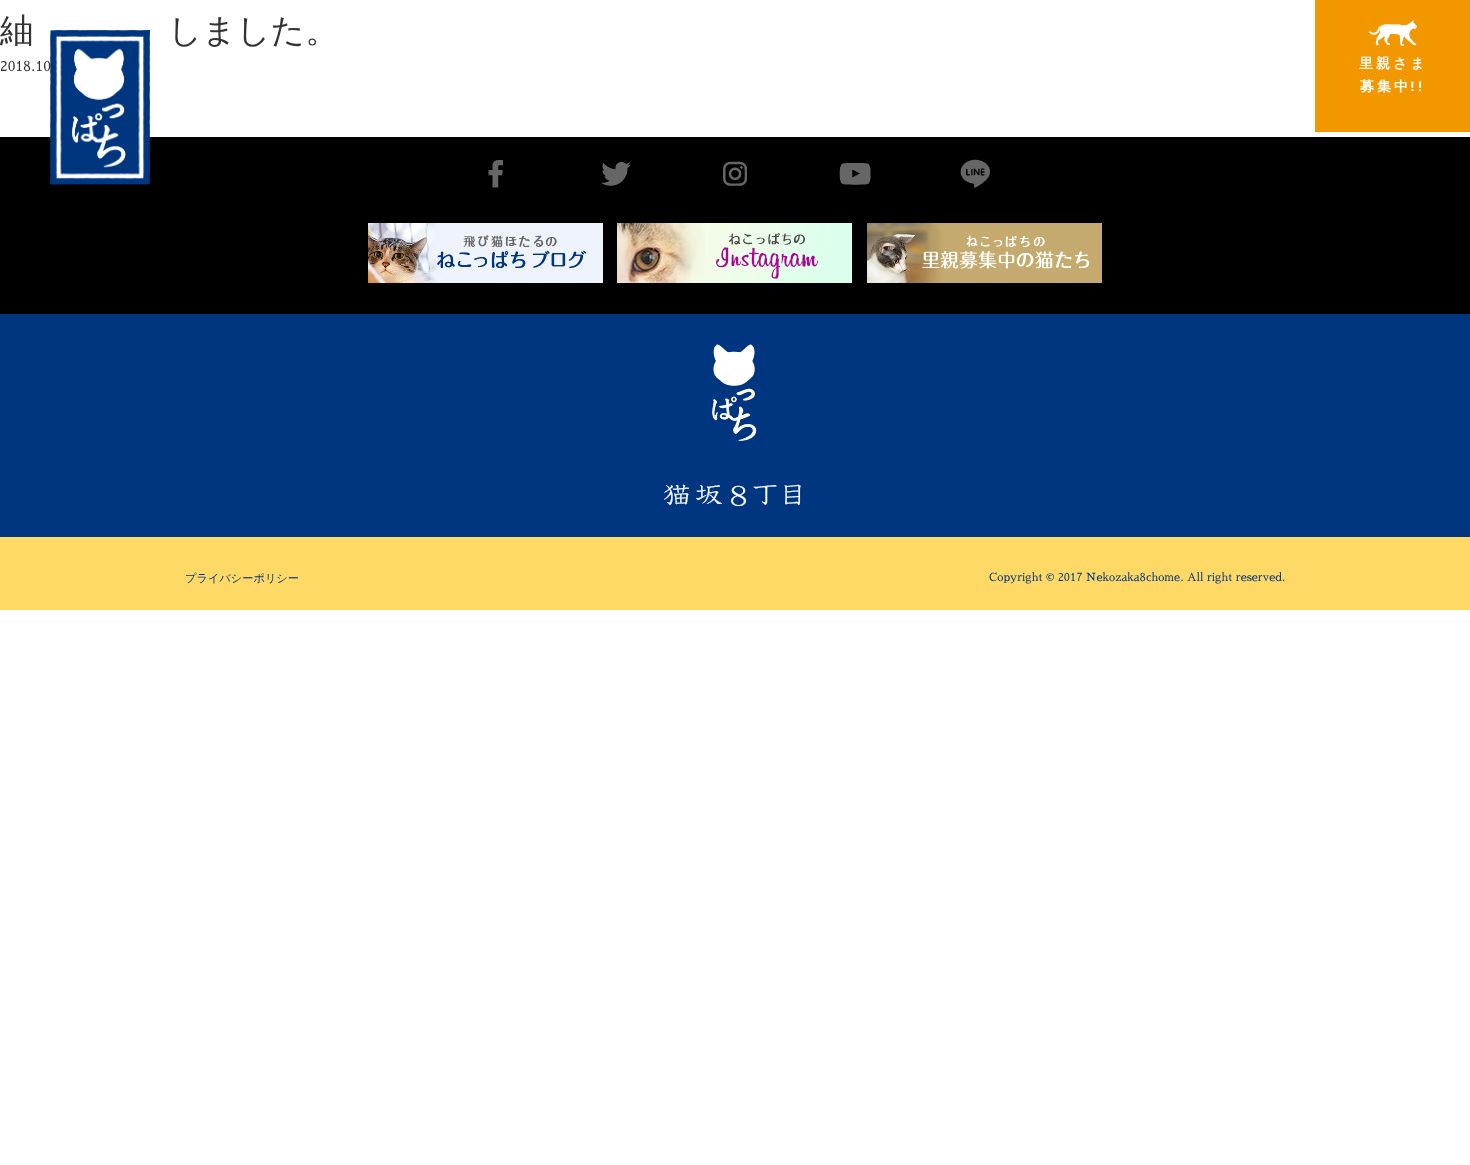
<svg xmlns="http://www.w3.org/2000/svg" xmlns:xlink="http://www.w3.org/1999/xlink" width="1470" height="1165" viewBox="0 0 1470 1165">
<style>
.cls-1{font:500 33.5px WenQuanYi Zen Hei;fill:#333333}
.cls-2{font:14px Sawarabi Mincho;fill:#333333}
.cls-3{font:bold 14px WenQuanYi Zen Hei;letter-spacing:3px;fill:#ffffff}
.cls-4{font:bold 14px Liberation Sans;letter-spacing:3px;fill:#ffffff}
.cls-5{font:500 11.2px WenQuanYi Zen Hei;fill:#00357f}
.cls-6{font:11.2px Sawarabi Mincho;fill:#00357f}
</style>
<rect width="100%" height="100%" fill="#ffffff"/>
<rect fill="#f29700" x="1315" y="0" width="155" height="132"/>
<image xlink:href="image1.png" x="1369" y="20" width="48" height="26"/>
<rect fill="#ffd966" x="0" y="537" width="1470" height="73"/>
<rect fill="#000000" x="0" y="137" width="1470" height="177"/>
<image xlink:href="image2.png" x="488" y="160" width="15" height="28"/>
<image xlink:href="image3.png" x="601" y="162" width="30" height="24"/>
<image xlink:href="image4.png" x="723" y="161" width="24" height="25"/>
<image xlink:href="image5.png" x="839" y="163" width="32" height="22"/>
<image xlink:href="image6.png" x="960" y="159" width="30" height="29"/>
<image xlink:href="image7.png" x="368" y="223" width="235" height="60"/>
<image xlink:href="image8.png" x="617" y="223" width="235" height="60"/>
<image xlink:href="image9.png" x="867" y="223" width="235" height="60"/>
<rect fill="#00357f" x="0" y="314" width="1470" height="223"/>
<image xlink:href="image10.png" x="664" y="344" width="137" height="163"/>
<text class="cls-1" x="0" y="42">紬</text>
<text class="cls-1" x="168" y="42">しました。</text>
<text class="cls-2" x="0" y="71">2018.10</text>
<image xlink:href="image0.png" x="50" y="30" width="100" height="155"/>
<text class="cls-3" x="1359" y="68">里親さま</text>
<text class="cls-3" x="1360" y="91">募集中</text>
<text class="cls-4" x="1410" y="91">!!</text>
<text class="cls-5" x="185" y="582">プライバシーポリシー</text>
<text class="cls-6" x="989" y="581">Copyright © 2017 Nekozaka8chome. All right reserved.</text>
</svg>
